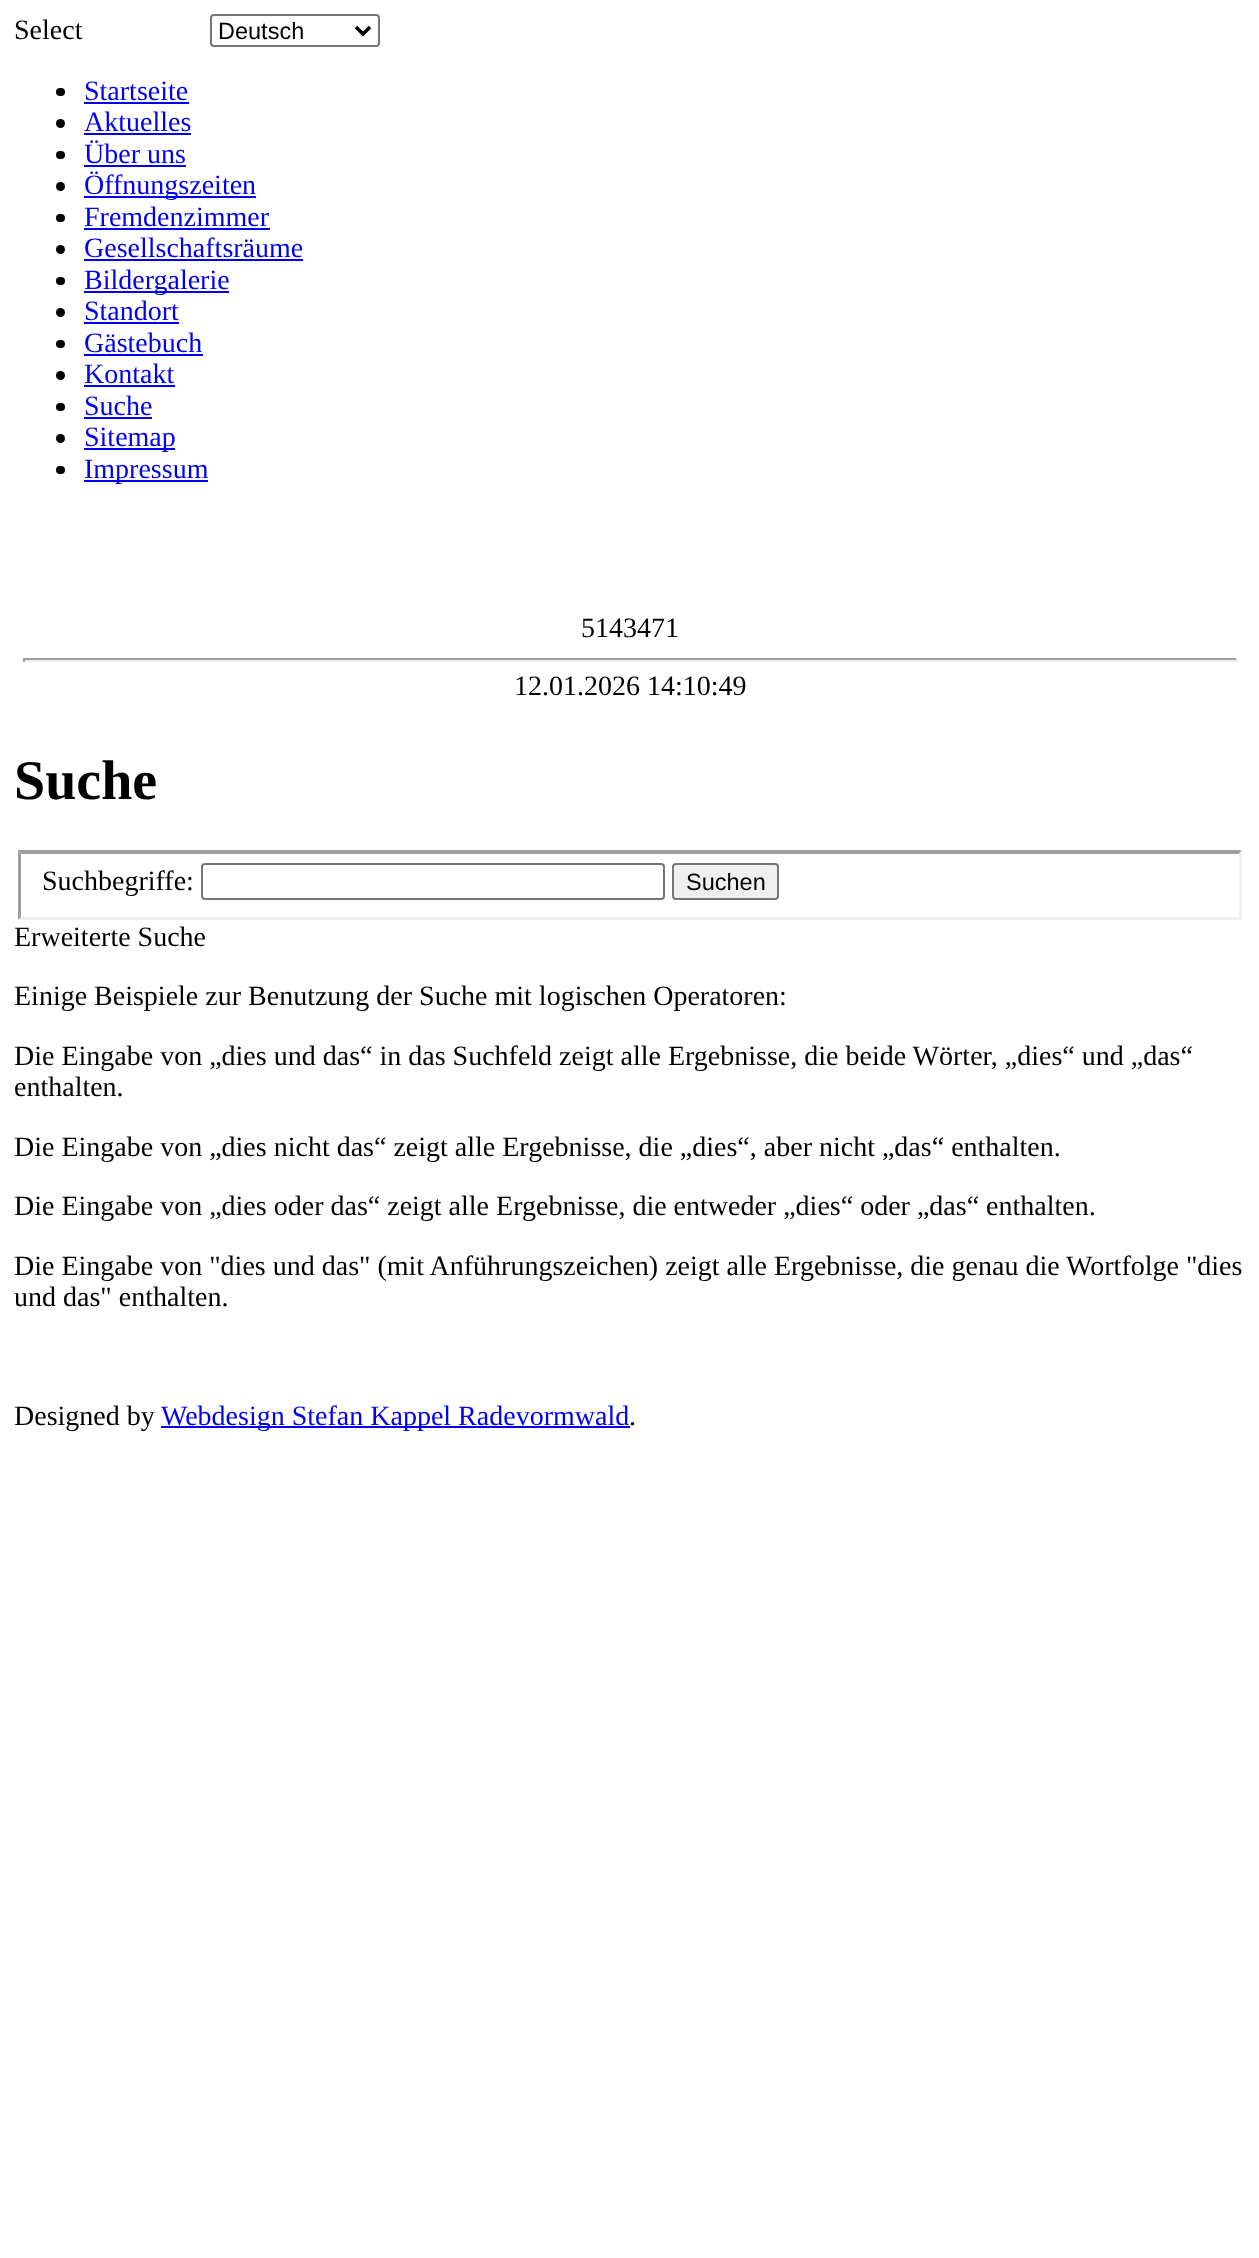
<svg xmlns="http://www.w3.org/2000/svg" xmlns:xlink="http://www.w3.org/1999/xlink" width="1259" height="2258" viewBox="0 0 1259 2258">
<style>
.cls-1{font:28px Liberation Serif;fill:#000000}
.cls-2{font:23.5px Liberation Sans;fill:#000000}
.cls-3{font:28px Liberation Serif;fill:#0000ee}
.cls-4{font:bold 56px Liberation Serif;fill:#000000}
</style>
<rect width="100%" height="100%" fill="#ffffff"/>
<rect fill="none" stroke="#767676" stroke-width="2" x="211" y="15" width="168" height="31" rx="3"/>
<path fill="none" stroke="#000000" stroke-width="3.5" d="M356 27L363 34L370 27"/>
<rect fill="#000000" x="56" y="88" width="9" height="8" rx="4"/>
<rect fill="#0000ee" x="84" y="102" width="105" height="2"/>
<circle fill="#000000" cx="60.5" cy="123.5" r="4.5"/>
<rect fill="#0000ee" x="84" y="133" width="107" height="2"/>
<rect fill="#000000" x="56" y="151" width="9" height="8" rx="4"/>
<rect fill="#0000ee" x="84" y="165" width="102" height="2"/>
<circle fill="#000000" cx="60.5" cy="186.5" r="4.5"/>
<rect fill="#0000ee" x="84" y="196" width="172" height="2"/>
<rect fill="#000000" x="56" y="214" width="9" height="8" rx="4"/>
<rect fill="#0000ee" x="84" y="228" width="186" height="2"/>
<circle fill="#000000" cx="60.5" cy="249.5" r="4.5"/>
<rect fill="#0000ee" x="84" y="259" width="219" height="2"/>
<rect fill="#000000" x="56" y="277" width="9" height="8" rx="4"/>
<rect fill="#0000ee" x="84" y="291" width="145" height="2"/>
<circle fill="#000000" cx="60.5" cy="312.5" r="4.5"/>
<rect fill="#0000ee" x="84" y="322" width="95" height="2"/>
<rect fill="#000000" x="56" y="340" width="9" height="8" rx="4"/>
<rect fill="#0000ee" x="84" y="354" width="119" height="2"/>
<circle fill="#000000" cx="60.5" cy="375.5" r="4.5"/>
<rect fill="#0000ee" x="84" y="385" width="91" height="2"/>
<rect fill="#000000" x="56" y="403" width="9" height="8" rx="4"/>
<rect fill="#0000ee" x="84" y="417" width="68" height="2"/>
<circle fill="#000000" cx="60.5" cy="438.5" r="4.5"/>
<rect fill="#0000ee" x="84" y="448" width="91" height="2"/>
<rect fill="#000000" x="56" y="466" width="9" height="8" rx="4"/>
<rect fill="#0000ee" x="84" y="480" width="124" height="2"/>
<rect fill="#9f9f9f" x="23" y="658" width="1214" height="2"/>
<rect fill="#eeeeee" x="1236" y="658" width="2" height="4"/>
<rect fill="#eeeeee" x="23" y="660" width="1214" height="2"/>
<rect fill="#9f9f9f" x="23" y="658" width="2" height="4"/>
<path fill="#9f9f9f" d="M18 850H1242L1239 854H21Z"/>
<path fill="#efefef" d="M1242 850V920L1239 917V854Z"/>
<path fill="#efefef" d="M1242 920H18L21 917H1239Z"/>
<path fill="#9f9f9f" d="M18 920V850L21 854V917Z"/>
<rect fill="none" stroke="#767676" stroke-width="2" x="202" y="864" width="462" height="35" rx="3"/>
<rect fill="#efefef" stroke="#767676" stroke-width="2" x="673" y="864" width="105" height="35" rx="3"/>
<rect fill="#0000ee" x="161" y="1426" width="469" height="2"/>
<text class="cls-1" x="14" y="39">Select</text>
<text class="cls-2" x="218" y="39">Deutsch</text>
<text class="cls-3"><tspan x="84" y="100">Startseite</tspan><tspan x="84" y="131">Aktuelles</tspan><tspan x="84" y="163">Über uns</tspan><tspan x="84" y="194">Öffnungszeiten</tspan><tspan x="84" y="226">Fremdenzimmer</tspan><tspan x="84" y="257">Gesellschaftsräume</tspan><tspan x="84" y="289">Bildergalerie</tspan><tspan x="84" y="320">Standort</tspan><tspan x="84" y="352">Gästebuch</tspan><tspan x="84" y="383">Kontakt</tspan><tspan x="84" y="415">Suche</tspan><tspan x="84" y="446">Sitemap</tspan><tspan x="84" y="478">Impressum</tspan></text>
<text class="cls-1" x="581" y="637">5143471</text>
<text class="cls-1" x="514" y="695">12.01.2026 14:10:49</text>
<text class="cls-4" x="14" y="799">Suche</text>
<text class="cls-1" x="42" y="890">Suchbegriffe:</text>
<text class="cls-2" x="686" y="890">Suchen</text>
<text class="cls-1" x="14" y="946">Erweiterte Suche</text>
<text class="cls-1" x="14" y="1005">Einige Beispiele zur Benutzung der Suche mit logischen Operatoren:</text>
<text class="cls-1"><tspan x="14" y="1065">Die Eingabe von „dies und das“ in das Suchfeld zeigt alle Ergebnisse, die beide Wörter, „dies“ und „das“</tspan><tspan x="14" y="1096">enthalten.</tspan></text>
<text class="cls-1" x="14" y="1156">Die Eingabe von „dies nicht das“ zeigt alle Ergebnisse, die „dies“, aber nicht „das“ enthalten.</text>
<text class="cls-1" x="14" y="1215">Die Eingabe von „dies oder das“ zeigt alle Ergebnisse, die entweder „dies“ oder „das“ enthalten.</text>
<text class="cls-1"><tspan x="14" y="1275">Die Eingabe von "dies und das" (mit Anführungszeichen) zeigt alle Ergebnisse, die genau die Wortfolge "dies</tspan><tspan x="14" y="1306">und das" enthalten.</tspan></text>
<text class="cls-1" x="14" y="1425">Designed by</text>
<text class="cls-3" x="161" y="1425">Webdesign Stefan Kappel Radevormwald</text>
<text class="cls-1" x="629" y="1425">.</text>
</svg>
